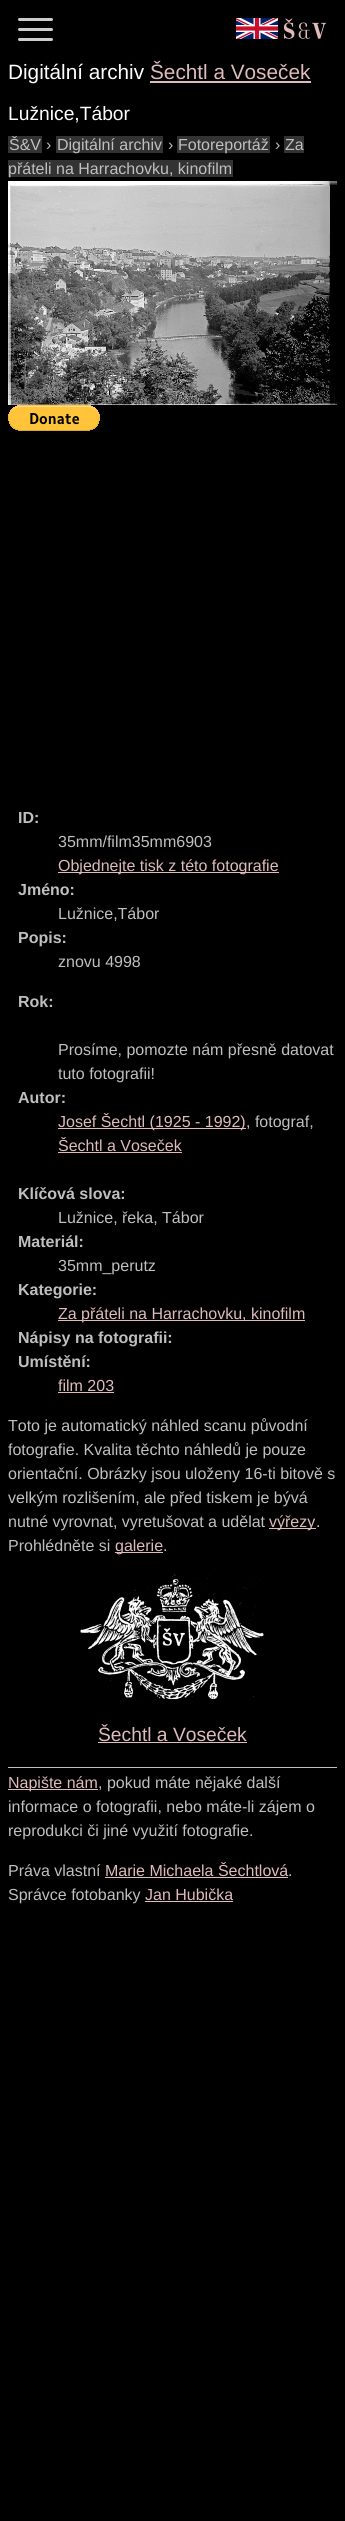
import math
import cairo



def rounded_rect(context, x, y, w, h, r):
    context.new_sub_path()
    for i, (u, v) in enumerate([(x + w - r, y + h - r), (x + r, y + h - r), (x + r, y + r), (x + w - r, y + r)]):
        context.arc(u, v, r, i * math.pi / 2, (i + 1) * math.pi / 2)
    context.close_path()


def draw_image(context, path, x, y, w, h):
    context.save()
    context.set_source_surface(cairo.ImageSurface.create_from_png(path), x, y)
    context.rectangle(x, y, w, h)
    context.fill()
    context.restore()


def draw(context):
    context.set_source_rgb(0, 0, 0)
    context.paint()
    context.set_source_rgb(205 / 255, 205 / 255, 205 / 255)
    rounded_rect(context, 18, 18, 35, 3, 1.5)
    context.fill()
    draw_image(context, "images/1.png", 236, 18, 42, 21)
    draw_image(context, "images/2.png", 283, 18, 44, 21)
    rounded_rect(context, 18, 28, 35, 3, 1.5)
    context.fill()
    rounded_rect(context, 18, 38, 35, 3, 1.5)
    context.fill()
    context.set_source_rgb(223 / 255, 187 / 255, 187 / 255)
    context.rectangle(150, 81, 161, 2)
    context.fill()
    context.set_source_rgb(51 / 255, 51 / 255, 51 / 255)
    context.rectangle(8, 136, 34, 17)
    context.fill()
    context.rectangle(56, 136, 107, 17)
    context.fill()
    context.rectangle(177, 136, 93, 17)
    context.fill()
    context.rectangle(284, 136, 20, 17)
    context.fill()
    context.rectangle(8, 160, 225, 17)
    context.fill()
    draw_image(context, "images/3.png", 8, 181, 329, 224)
    draw_image(context, "images/4.png", 8, 405, 92, 26)
    context.set_source_rgb(223 / 255, 187 / 255, 187 / 255)
    context.rectangle(58, 872, 221, 1)
    context.fill()
    context.rectangle(58, 1128, 188, 1)
    context.fill()
    context.rectangle(58, 1152, 124, 1)
    context.fill()
    context.rectangle(58, 1320, 247, 1)
    context.fill()
    context.rectangle(58, 1392, 56, 1)
    context.fill()
    context.rectangle(269, 1528, 47, 1)
    context.fill()
    context.rectangle(115, 1552, 48, 1)
    context.fill()
    draw_image(context, "images/5.png", 80, 1574, 187, 128)
    context.rectangle(98, 1742, 149, 1)
    context.fill()
    context.set_source_rgb(191 / 255, 191 / 255, 191 / 255)
    context.rectangle(8, 1767, 329, 1)
    context.fill()
    context.set_source_rgb(223 / 255, 187 / 255, 187 / 255)
    context.rectangle(8, 1789, 90, 1)
    context.fill()
    context.rectangle(105, 1877, 183, 1)
    context.fill()
    context.rectangle(145, 1901, 88, 1)
    context.fill()
    context.select_font_face("Liberation Sans")
    context.set_font_size(20.75)
    context.set_source_rgb(1, 1, 1)
    context.move_to(8, 79)
    context.show_text("Digitální archiv")
    context.set_source_rgb(223 / 255, 187 / 255, 187 / 255)
    context.move_to(150, 79)
    context.show_text("Šechtl a Voseček")
    context.set_font_size(19.25)
    context.set_source_rgb(1, 1, 1)
    context.move_to(8, 120)
    context.show_text("Lužnice,Tábor")
    context.set_font_size(16)
    context.set_source_rgb(191 / 255, 191 / 255, 191 / 255)
    context.move_to(9, 150)
    context.show_text("Š&V")
    context.move_to(46, 150)
    context.show_text("›")
    context.move_to(57, 150)
    context.show_text("Digitální archiv")
    context.move_to(168, 150)
    context.show_text("›")
    context.move_to(178, 150)
    context.show_text("Fotoreportáž")
    context.move_to(275, 150)
    context.show_text("›")
    context.move_to(285, 150)
    context.show_text("Za")
    context.move_to(8, 174)
    context.show_text("přáteli na Harrachovku, kinofilm")
    context.select_font_face("Liberation Sans", cairo.FontSlant.NORMAL, cairo.FontWeight.BOLD)
    context.move_to(18, 823)
    context.show_text("ID:")
    context.select_font_face("Liberation Sans")
    context.move_to(58, 847)
    context.show_text("35mm/film35mm6903")
    context.set_source_rgb(223 / 255, 187 / 255, 187 / 255)
    context.move_to(58, 871)
    context.show_text("Objednejte tisk z této fotografie")
    context.select_font_face("Liberation Sans", cairo.FontSlant.NORMAL, cairo.FontWeight.BOLD)
    context.set_source_rgb(191 / 255, 191 / 255, 191 / 255)
    context.move_to(18, 895)
    context.show_text("Jméno:")
    context.select_font_face("Liberation Sans")
    context.move_to(58, 919)
    context.show_text("Lužnice,Tábor")
    context.select_font_face("Liberation Sans", cairo.FontSlant.NORMAL, cairo.FontWeight.BOLD)
    context.move_to(18, 943)
    context.show_text("Popis:")
    context.select_font_face("Liberation Sans")
    context.move_to(58, 967)
    context.show_text("znovu 4998")
    context.select_font_face("Liberation Sans", cairo.FontSlant.NORMAL, cairo.FontWeight.BOLD)
    context.move_to(18, 1007)
    context.show_text("Rok:")
    context.select_font_face("Liberation Sans")
    context.move_to(58, 1055)
    context.show_text("Prosíme, pomozte nám přesně datovat")
    context.move_to(58, 1079)
    context.show_text("tuto fotografii!")
    context.select_font_face("Liberation Sans", cairo.FontSlant.NORMAL, cairo.FontWeight.BOLD)
    context.move_to(18, 1103)
    context.show_text("Autor:")
    context.select_font_face("Liberation Sans")
    context.set_source_rgb(223 / 255, 187 / 255, 187 / 255)
    context.move_to(58, 1127)
    context.show_text("Josef Šechtl (1925 - 1992)")
    context.set_source_rgb(191 / 255, 191 / 255, 191 / 255)
    context.move_to(246, 1127)
    context.show_text(", fotograf,")
    context.set_source_rgb(223 / 255, 187 / 255, 187 / 255)
    context.move_to(58, 1151)
    context.show_text("Šechtl a Voseček")
    context.select_font_face("Liberation Sans", cairo.FontSlant.NORMAL, cairo.FontWeight.BOLD)
    context.set_source_rgb(191 / 255, 191 / 255, 191 / 255)
    context.move_to(18, 1199)
    context.show_text("Klíčová slova:")
    context.select_font_face("Liberation Sans")
    context.move_to(58, 1223)
    context.show_text("Lužnice, řeka, Tábor")
    context.select_font_face("Liberation Sans", cairo.FontSlant.NORMAL, cairo.FontWeight.BOLD)
    context.move_to(18, 1247)
    context.show_text("Materiál:")
    context.select_font_face("Liberation Sans")
    context.move_to(58, 1271)
    context.show_text("35mm_perutz")
    context.select_font_face("Liberation Sans", cairo.FontSlant.NORMAL, cairo.FontWeight.BOLD)
    context.move_to(18, 1295)
    context.show_text("Kategorie:")
    context.select_font_face("Liberation Sans")
    context.set_source_rgb(223 / 255, 187 / 255, 187 / 255)
    context.move_to(58, 1319)
    context.show_text("Za přáteli na Harrachovku, kinofilm")
    context.select_font_face("Liberation Sans", cairo.FontSlant.NORMAL, cairo.FontWeight.BOLD)
    context.set_source_rgb(191 / 255, 191 / 255, 191 / 255)
    context.move_to(18, 1343)
    context.show_text("Nápisy na fotografii:")
    context.move_to(18, 1367)
    context.show_text("Umístění:")
    context.select_font_face("Liberation Sans")
    context.set_source_rgb(223 / 255, 187 / 255, 187 / 255)
    context.move_to(58, 1391)
    context.show_text("film 203")
    context.set_source_rgb(191 / 255, 191 / 255, 191 / 255)
    context.move_to(8, 1431)
    context.show_text("Toto je automatický náhled scanu původní")
    context.move_to(8, 1455)
    context.show_text("fotografie. Kvalita těchto náhledů je pouze")
    context.move_to(8, 1479)
    context.show_text("orientační. Obrázky jsou uloženy 16-ti bitově s")
    context.move_to(8, 1503)
    context.show_text("velkým rozlišením, ale před tiskem je bývá")
    context.move_to(8, 1527)
    context.show_text("nutné vyrovnat, vyretušovat a udělat")
    context.set_source_rgb(223 / 255, 187 / 255, 187 / 255)
    context.move_to(269, 1527)
    context.show_text("výřezy")
    context.set_source_rgb(191 / 255, 191 / 255, 191 / 255)
    context.move_to(316, 1527)
    context.show_text(".")
    context.move_to(8, 1551)
    context.show_text("Prohlédněte si")
    context.set_source_rgb(223 / 255, 187 / 255, 187 / 255)
    context.move_to(115, 1551)
    context.show_text("galerie")
    context.set_source_rgb(191 / 255, 191 / 255, 191 / 255)
    context.move_to(163, 1551)
    context.show_text(".")
    context.set_font_size(19.25)
    context.set_source_rgb(223 / 255, 187 / 255, 187 / 255)
    context.move_to(98, 1741)
    context.show_text("Šechtl a Voseček")
    context.set_font_size(16)
    context.move_to(8, 1788)
    context.show_text("Napište nám")
    context.set_source_rgb(191 / 255, 191 / 255, 191 / 255)
    context.move_to(98, 1788)
    context.show_text(", pokud máte nějaké další")
    context.move_to(8, 1812)
    context.show_text("informace o fotografii, nebo máte-li zájem o")
    context.move_to(8, 1836)
    context.show_text("reprodukci či jiné využití fotografie.")
    context.move_to(8, 1876)
    context.show_text("Práva vlastní")
    context.set_source_rgb(223 / 255, 187 / 255, 187 / 255)
    context.move_to(105, 1876)
    context.show_text("Marie Michaela Šechtlová")
    context.set_source_rgb(191 / 255, 191 / 255, 191 / 255)
    context.move_to(288, 1876)
    context.show_text(".")
    context.move_to(8, 1900)
    context.show_text("Správce fotobanky")
    context.set_source_rgb(223 / 255, 187 / 255, 187 / 255)
    context.move_to(145, 1900)
    context.show_text("Jan Hubička")


surface = cairo.ImageSurface(cairo.Format.RGB24, 345, 2521)
context = cairo.Context(surface)
options = cairo.FontOptions()
options.set_hint_metrics(cairo.HintMetrics.OFF)
options.set_hint_style(cairo.HintStyle.NONE)
context.set_font_options(options)
context.set_miter_limit(4)
draw(context)
surface.write_to_png("out.png")
